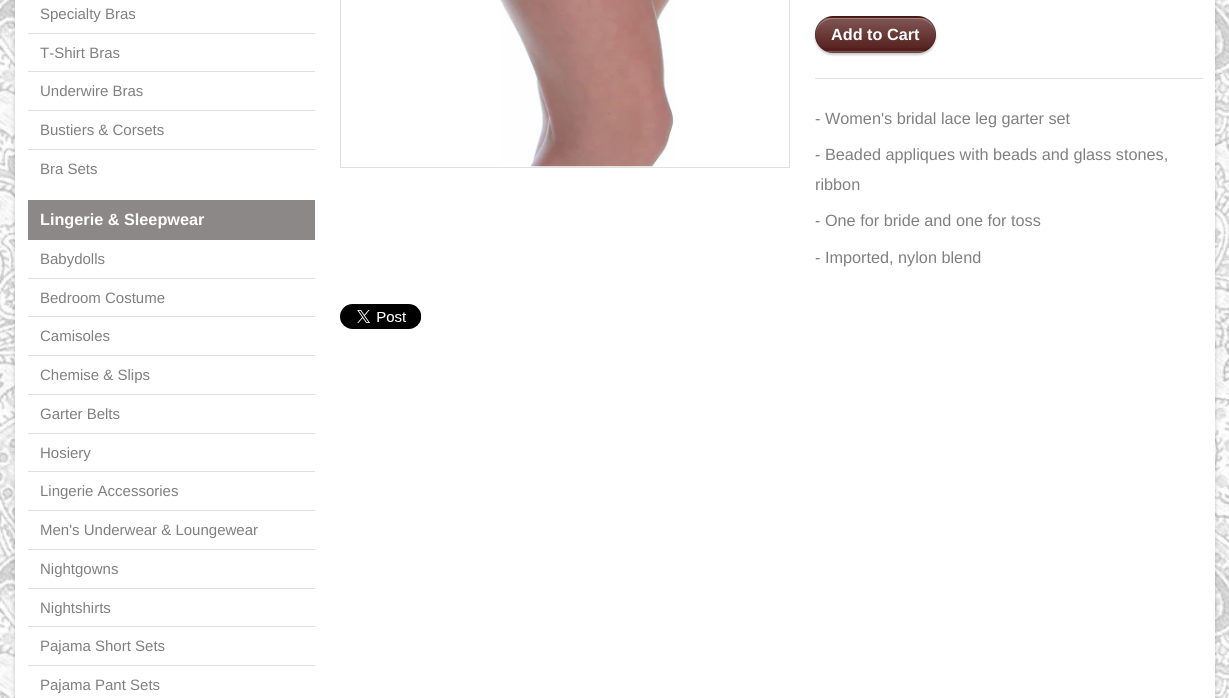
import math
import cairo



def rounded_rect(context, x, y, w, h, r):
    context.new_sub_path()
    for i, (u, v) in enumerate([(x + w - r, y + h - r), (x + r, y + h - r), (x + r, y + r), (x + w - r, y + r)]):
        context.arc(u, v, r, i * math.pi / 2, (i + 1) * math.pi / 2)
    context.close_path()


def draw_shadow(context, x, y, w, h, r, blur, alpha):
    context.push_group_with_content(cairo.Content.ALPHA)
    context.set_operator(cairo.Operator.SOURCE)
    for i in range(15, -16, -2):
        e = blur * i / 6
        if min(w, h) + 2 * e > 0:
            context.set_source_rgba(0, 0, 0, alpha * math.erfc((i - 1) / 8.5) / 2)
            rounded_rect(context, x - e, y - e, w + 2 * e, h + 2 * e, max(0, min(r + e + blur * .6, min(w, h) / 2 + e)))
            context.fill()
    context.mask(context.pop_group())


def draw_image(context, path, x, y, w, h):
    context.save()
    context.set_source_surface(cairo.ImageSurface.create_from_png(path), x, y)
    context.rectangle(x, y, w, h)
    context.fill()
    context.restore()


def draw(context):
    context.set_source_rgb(1, 1, 1)
    context.paint()
    draw_image(context, "images/1.png", 0, 0, 1229, 698)
    context.set_source_rgb(0, 0, 0)
    draw_shadow(context, 15, -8, 1200, 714, 0, 2.5, 0.2)
    context.set_source_rgb(1, 1, 1)
    context.rectangle(15, 0, 1200, 698)
    context.fill()
    context.set_source_rgb(224 / 255, 224 / 255, 224 / 255)
    context.rectangle(28, 33, 287, 1)
    context.fill()
    context.rectangle(28, 71, 287, 1)
    context.fill()
    context.rectangle(28, 110, 287, 1)
    context.fill()
    context.rectangle(28, 149, 287, 1)
    context.fill()
    context.set_source_rgb(140 / 255, 136 / 255, 136 / 255)
    context.rectangle(28, 200, 287, 40)
    context.fill()
    context.set_source_rgb(224 / 255, 224 / 255, 224 / 255)
    context.rectangle(28, 278, 287, 1)
    context.fill()
    context.rectangle(28, 316, 287, 1)
    context.fill()
    context.rectangle(28, 355, 287, 1)
    context.fill()
    context.rectangle(28, 394, 287, 1)
    context.fill()
    context.rectangle(28, 433, 287, 1)
    context.fill()
    context.rectangle(28, 471, 287, 1)
    context.fill()
    context.rectangle(28, 510, 287, 1)
    context.fill()
    context.rectangle(28, 549, 287, 1)
    context.fill()
    context.rectangle(28, 588, 287, 1)
    context.fill()
    context.rectangle(28, 626, 287, 1)
    context.fill()
    context.rectangle(28, 665, 287, 1)
    context.fill()
    context.rectangle(340.5, -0.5, 449, 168)
    context.set_line_width(1)
    context.stroke()
    draw_image(context, "images/2.png", 499, 0, 177, 167)
    context.rectangle(815, 78, 388, 1)
    context.fill()
    context.set_source_rgb(0, 0, 0)
    draw_shadow(context, 815, 19, 121, 36, 18, 1, 0.2)
    context.set_source_rgb(84 / 255, 30 / 255, 28 / 255)
    rounded_rect(context, 815, 16, 121, 37, 18.5)
    context.fill()
    context.save()
    rounded_rect(context, 815, 16, 121, 37, 18.5)
    context.clip()
    gradient = cairo.LinearGradient(816, 51, 816, 18)
    gradient.add_color_stop_rgba(0, 1, 1, 1, 0)
    gradient.add_color_stop_rgba(1, 1, 1, 1, 0.25)
    context.set_source(gradient)
    context.rectangle(815, 18, 121, 30)
    context.fill()
    gradient = cairo.LinearGradient(816, 85, 816, 51)
    gradient.add_color_stop_rgba(0, 1, 1, 1, 0)
    gradient.add_color_stop_rgba(1, 1, 1, 1, 0.25)
    context.set_source(gradient)
    context.rectangle(825, 51, 101, 2)
    context.fill()
    context.restore()
    context.set_source_rgba(1, 1, 1, 0.25)
    context.new_path()
    context.move_to(833, 19)
    context.line_to(918, 19)
    context.curve_to(927, 19, 935, 26, 935, 35)
    context.line_to(935, 34)
    context.curve_to(935, 25, 928, 18, 918, 18)
    context.line_to(832, 18)
    context.curve_to(823, 18, 816, 25, 816, 34)
    context.line_to(816, 35)
    context.curve_to(816, 26, 824, 19, 833, 19)
    context.close_path()
    context.fill()
    rounded_rect(context, 815.5, 16.5, 120, 36, 18)
    context.set_source_rgba(0, 0, 0, 0.2)
    context.stroke()
    draw_image(context, "images/3.png", 340, 304, 82, 25)
    context.select_font_face("Liberation Sans")
    context.set_font_size(15)
    context.set_source_rgb(128 / 255, 128 / 255, 128 / 255)
    context.move_to(40, 19)
    context.show_text("Specialty Bras")
    context.move_to(40, 58)
    context.show_text("T-Shirt Bras")
    context.move_to(40, 96)
    context.show_text("Underwire Bras")
    context.move_to(40, 135)
    context.show_text("Bustiers & Corsets")
    context.move_to(40, 174)
    context.show_text("Bra Sets")
    context.select_font_face("Liberation Sans", cairo.FontSlant.NORMAL, cairo.FontWeight.BOLD)
    context.set_font_size(16.25)
    context.set_source_rgb(1, 1, 1)
    context.move_to(40, 225)
    context.show_text("Lingerie & Sleepwear")
    context.select_font_face("Liberation Sans")
    context.set_font_size(15)
    context.set_source_rgb(128 / 255, 128 / 255, 128 / 255)
    context.move_to(40, 264)
    context.show_text("Babydolls")
    context.move_to(40, 303)
    context.show_text("Bedroom Costume")
    context.move_to(40, 341)
    context.show_text("Camisoles")
    context.move_to(40, 380)
    context.show_text("Chemise & Slips")
    context.move_to(40, 419)
    context.show_text("Garter Belts")
    context.move_to(40, 458)
    context.show_text("Hosiery")
    context.move_to(40, 496)
    context.show_text("Lingerie Accessories")
    context.move_to(40, 535)
    context.show_text("Men's Underwear & Loungewear")
    context.move_to(40, 574)
    context.show_text("Nightgowns")
    context.move_to(40, 613)
    context.show_text("Nightshirts")
    context.move_to(40, 651)
    context.show_text("Pajama Short Sets")
    context.move_to(40, 690)
    context.show_text("Pajama Pant Sets")
    context.select_font_face("Liberation Sans", cairo.FontSlant.NORMAL, cairo.FontWeight.BOLD)
    context.set_font_size(16.25)
    context.set_source_rgb(1, 1, 1)
    context.move_to(831, 40)
    context.show_text("Add to Cart")
    context.select_font_face("Liberation Sans")
    context.set_source_rgb(128 / 255, 128 / 255, 128 / 255)
    context.move_to(815, 124)
    context.show_text("- Women's bridal lace leg garter set")
    context.move_to(815, 160)
    context.show_text("- Beaded appliques with beads and glass stones,")
    context.move_to(815, 190)
    context.show_text("ribbon")
    context.move_to(815, 226)
    context.show_text("- One for bride and one for toss")
    context.move_to(815, 263)
    context.show_text("- Imported, nylon blend")


surface = cairo.ImageSurface(cairo.Format.RGB24, 1229, 698)
context = cairo.Context(surface)
options = cairo.FontOptions()
options.set_hint_metrics(cairo.HintMetrics.OFF)
options.set_hint_style(cairo.HintStyle.NONE)
context.set_font_options(options)
context.set_miter_limit(4)
draw(context)
surface.write_to_png("out.png")
